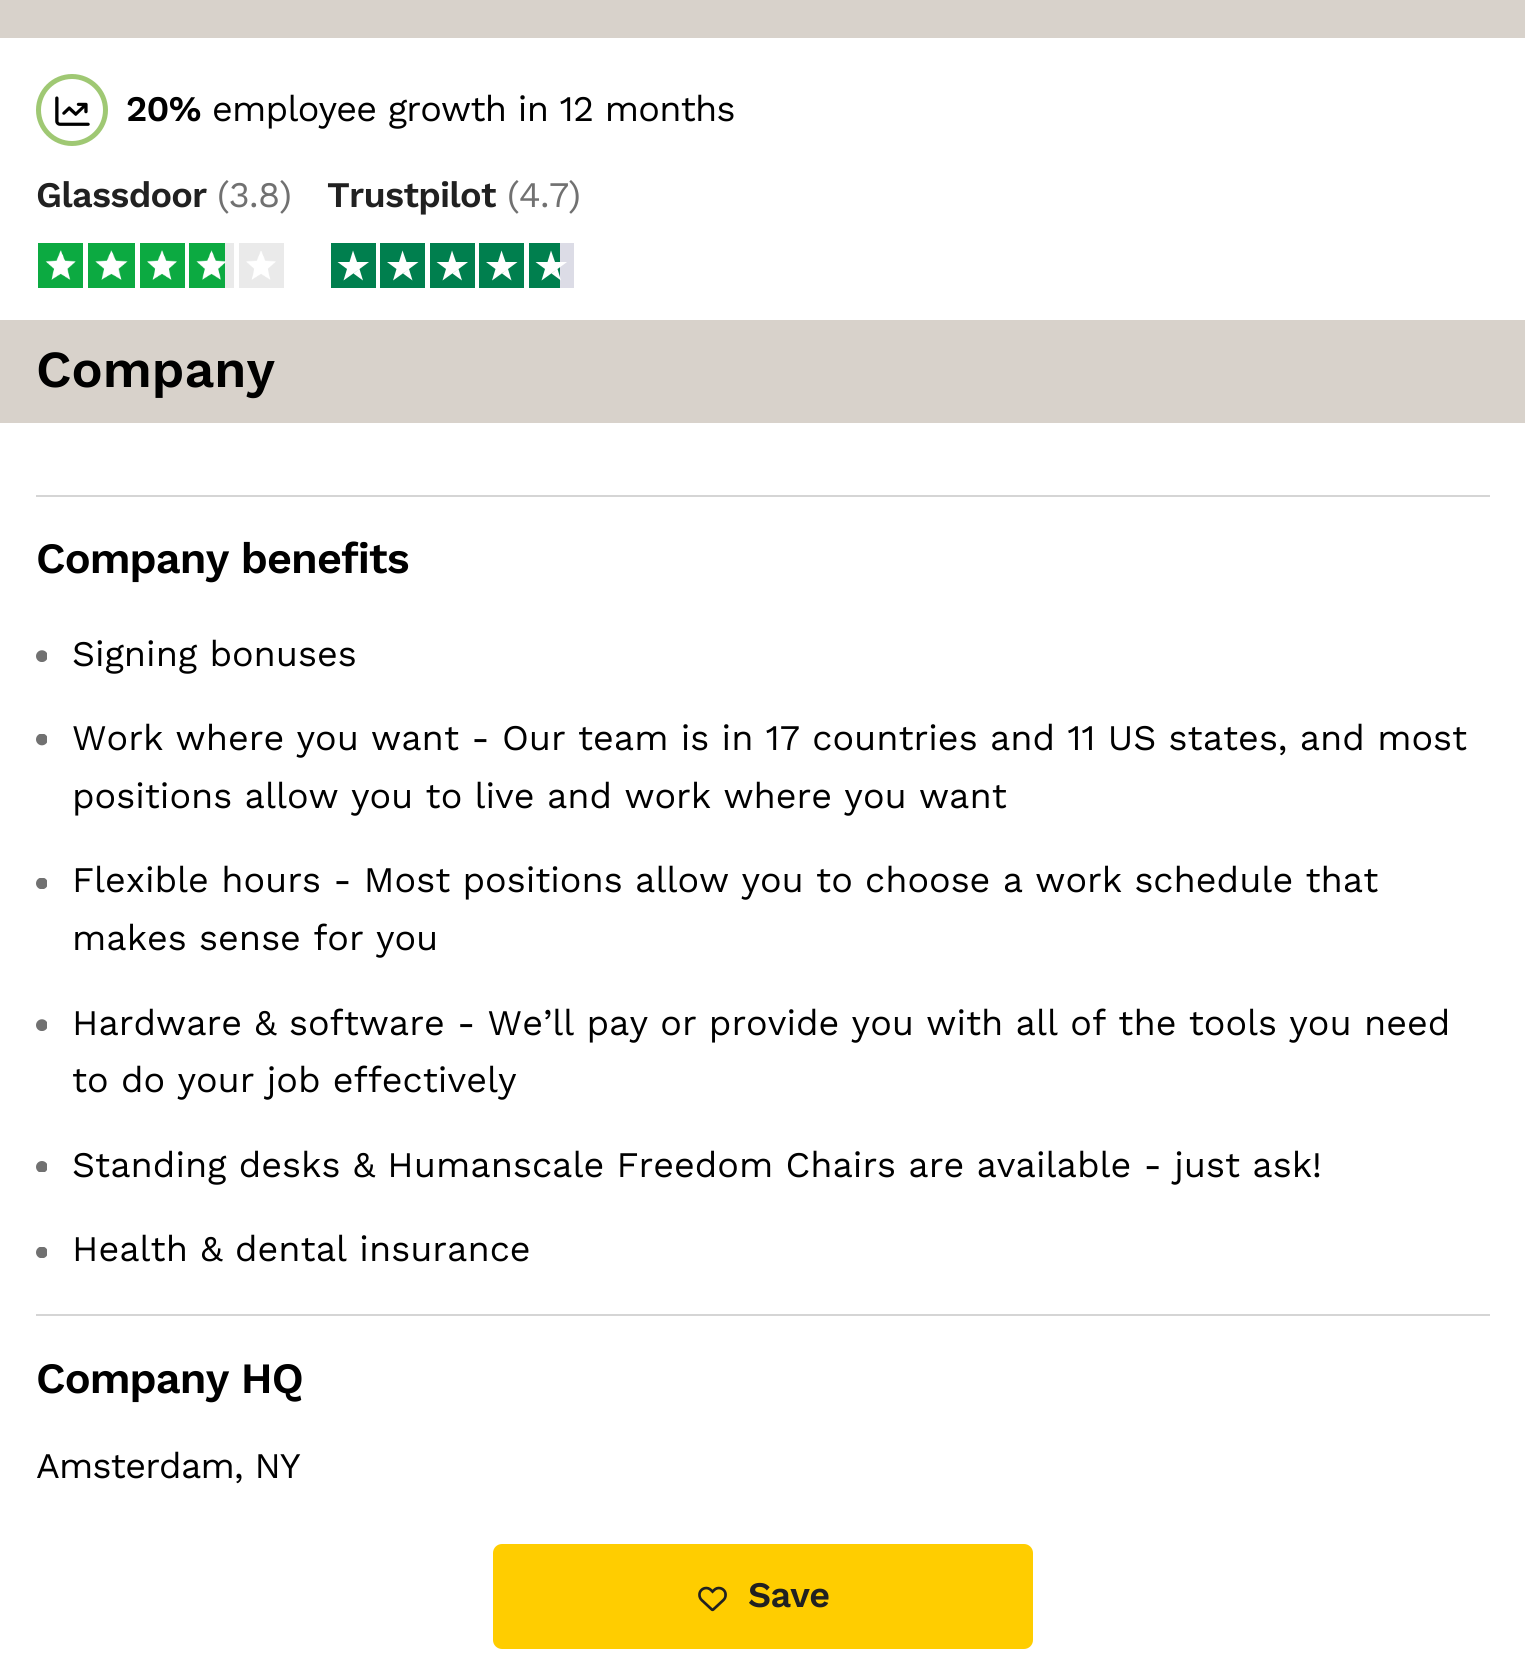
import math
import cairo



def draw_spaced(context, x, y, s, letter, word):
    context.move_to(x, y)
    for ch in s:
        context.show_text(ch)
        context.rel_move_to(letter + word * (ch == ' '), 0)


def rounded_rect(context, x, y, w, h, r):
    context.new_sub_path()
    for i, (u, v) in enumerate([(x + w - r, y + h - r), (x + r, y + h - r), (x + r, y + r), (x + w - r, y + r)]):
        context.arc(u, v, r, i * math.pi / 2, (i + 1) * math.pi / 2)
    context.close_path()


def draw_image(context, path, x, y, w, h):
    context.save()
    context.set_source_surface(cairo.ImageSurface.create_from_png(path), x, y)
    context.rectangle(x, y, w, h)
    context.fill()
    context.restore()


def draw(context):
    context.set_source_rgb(1, 1, 1)
    context.paint()
    context.set_source_rgb(216 / 255, 210 / 255, 203 / 255)
    context.rectangle(0, 0, 1525, 38)
    context.fill()
    context.arc(72, 110, 33.5, 0, 2 * math.pi)
    context.set_source_rgb(159 / 255, 200 / 255, 115 / 255)
    context.set_line_width(5)
    context.stroke()
    draw_image(context, "images/1.png", 55, 96, 35, 30)
    context.set_source_rgb(12 / 255, 170 / 255, 65 / 255)
    context.rectangle(38, 243, 45, 45)
    context.fill()
    draw_image(context, "images/2.png", 45, 250, 31, 30)
    context.rectangle(88, 243, 47, 45)
    context.fill()
    draw_image(context, "images/3.png", 95, 250, 33, 30)
    context.rectangle(140, 243, 45, 45)
    context.fill()
    draw_image(context, "images/4.png", 147, 250, 30, 30)
    context.rectangle(189, 243, 36, 45)
    context.fill()
    context.set_source_rgb(234 / 255, 234 / 255, 234 / 255)
    context.rectangle(225, 243, 9, 45)
    context.fill()
    draw_image(context, "images/5.png", 196, 250, 30, 30)
    context.rectangle(239, 243, 45, 45)
    context.fill()
    draw_image(context, "images/6.png", 246, 251, 30, 29)
    context.set_source_rgb(0, 127 / 255, 78 / 255)
    context.rectangle(331, 243, 45, 45)
    context.fill()
    context.set_source_rgb(1, 1, 1)
    context.new_path()
    context.move_to(353.5, 273.5)
    context.line_to(359.5, 269)
    context.line_to(363, 280.5)
    context.close_path()
    context.move_to(369, 262)
    context.line_to(357, 262)
    context.line_to(353, 250.5)
    context.line_to(349.5, 262)
    context.line_to(337.5, 262)
    context.line_to(347, 269)
    context.line_to(343.5, 280.5)
    context.line_to(359.5, 269)
    context.close_path()
    context.fill()
    context.set_source_rgb(0, 127 / 255, 78 / 255)
    context.rectangle(380, 243, 45, 45)
    context.fill()
    context.set_source_rgb(1, 1, 1)
    context.new_path()
    context.move_to(403, 273.5)
    context.line_to(409, 269)
    context.line_to(412.5, 280.5)
    context.close_path()
    context.move_to(418.5, 262)
    context.line_to(406.5, 262)
    context.line_to(402.5, 250.5)
    context.line_to(399, 262)
    context.line_to(387, 262)
    context.line_to(396.5, 269)
    context.line_to(393, 280.5)
    context.line_to(409, 269)
    context.close_path()
    context.fill()
    context.set_source_rgb(0, 127 / 255, 78 / 255)
    context.rectangle(430, 243, 45, 45)
    context.fill()
    context.set_source_rgb(1, 1, 1)
    context.new_path()
    context.move_to(452.5, 273.5)
    context.line_to(458.5, 269)
    context.line_to(462, 280.5)
    context.close_path()
    context.move_to(468, 262)
    context.line_to(456, 262)
    context.line_to(452, 250.5)
    context.line_to(448.5, 262)
    context.line_to(436.5, 262)
    context.line_to(446, 269)
    context.line_to(442.5, 280.5)
    context.line_to(458.5, 269)
    context.close_path()
    context.fill()
    context.set_source_rgb(0, 127 / 255, 78 / 255)
    context.rectangle(479, 243, 45, 45)
    context.fill()
    context.set_source_rgb(1, 1, 1)
    context.new_path()
    context.move_to(502, 273.5)
    context.line_to(508, 269)
    context.line_to(511.5, 280.5)
    context.close_path()
    context.move_to(517.5, 262)
    context.line_to(505.5, 262)
    context.line_to(501.5, 250.5)
    context.line_to(498, 262)
    context.line_to(486, 262)
    context.line_to(495.5, 269)
    context.line_to(492, 280.5)
    context.line_to(508, 269)
    context.close_path()
    context.fill()
    context.set_source_rgb(0, 127 / 255, 78 / 255)
    context.rectangle(529, 243, 31, 45)
    context.fill()
    context.set_source_rgb(220 / 255, 220 / 255, 230 / 255)
    context.rectangle(560, 243, 14, 45)
    context.fill()
    context.set_source_rgb(1, 1, 1)
    context.new_path()
    context.move_to(551.5, 273.5)
    context.line_to(557.5, 269)
    context.line_to(561, 280.5)
    context.close_path()
    context.move_to(567, 262)
    context.line_to(555, 262)
    context.line_to(551, 250.5)
    context.line_to(547.5, 262)
    context.line_to(535.5, 262)
    context.line_to(545, 269)
    context.line_to(541.5, 280.5)
    context.line_to(557.5, 269)
    context.close_path()
    context.fill()
    context.set_source_rgb(216 / 255, 210 / 255, 203 / 255)
    context.rectangle(0, 320, 1525, 103)
    context.fill()
    context.set_source_rgb(213 / 255, 213 / 255, 213 / 255)
    context.rectangle(36, 495, 1454, 2)
    context.fill()
    draw_image(context, "images/7.png", 36, 650, 11, 12)
    draw_image(context, "images/8.png", 36, 734, 11, 12)
    draw_image(context, "images/9.png", 36, 878, 11, 11)
    draw_image(context, "images/7.png", 36, 1019, 11, 12)
    draw_image(context, "images/10.png", 36, 1161, 11, 11)
    draw_image(context, "images/9.png", 36, 1247, 11, 11)
    context.rectangle(36, 1314, 1454, 2)
    context.fill()
    context.set_source_rgb(1, 205 / 255, 0)
    rounded_rect(context, 494, 1545, 538, 103, 8)
    context.fill_preserve()
    context.set_line_width(2)
    context.stroke()
    draw_image(context, "images/11.png", 698, 1586, 29, 26)
    context.select_font_face("Work Sans SemiBold")
    context.set_font_size(36)
    context.set_source_rgb(0, 0, 0)
    draw_spaced(context, 126, 121, "20%", -0.75, 0)
    context.select_font_face("Work Sans")
    draw_spaced(context, 212, 121, "employee growth in 12 months", -0.75, 0)
    context.select_font_face("Work Sans SemiBold")
    context.set_source_rgb(33 / 255, 33 / 255, 33 / 255)
    draw_spaced(context, 36, 207, "Glassdoor", -0.75, 0)
    context.select_font_face("Work Sans")
    context.set_source_rgb(113 / 255, 113 / 255, 113 / 255)
    draw_spaced(context, 217, 207, "(3.8)", -0.75, 0)
    context.select_font_face("Work Sans SemiBold")
    context.set_source_rgb(33 / 255, 33 / 255, 33 / 255)
    draw_spaced(context, 327, 207, "Trustpilot", -0.75, 0)
    context.select_font_face("Work Sans")
    context.set_source_rgb(113 / 255, 113 / 255, 113 / 255)
    draw_spaced(context, 507, 207, "(4.7)", -0.75, 0)
    context.select_font_face("Work Sans SemiBold")
    context.set_font_size(52)
    context.set_source_rgb(0, 0, 0)
    context.move_to(36, 387)
    context.show_text("Company")
    context.set_font_size(43.25)
    draw_spaced(context, 36, 573, "Company benefits", -0.9, 0)
    context.select_font_face("Work Sans")
    context.set_font_size(36)
    context.move_to(72, 666)
    context.show_text("Signing bonuses")
    context.move_to(72, 750)
    context.show_text("Work where you want - Our team is in 17 countries and 11 US states, and most")
    context.move_to(72, 808)
    context.show_text("positions allow you to live and work where you want")
    context.move_to(72, 892)
    context.show_text("Flexible hours - Most positions allow you to choose a work schedule that")
    context.move_to(72, 950)
    context.show_text("makes sense for you")
    context.move_to(72, 1035)
    context.show_text("Hardware & software - We’ll pay or provide you with all of the tools you need")
    context.move_to(72, 1092)
    context.show_text("to do your job effectively")
    context.move_to(72, 1177)
    context.show_text("Standing desks & Humanscale Freedom Chairs are available - just ask!")
    context.move_to(72, 1261)
    context.show_text("Health & dental insurance")
    context.select_font_face("Work Sans SemiBold")
    context.set_font_size(43.25)
    draw_spaced(context, 36, 1393, "Company HQ", -0.9, 0)
    context.select_font_face("Work Sans")
    context.set_font_size(36)
    draw_spaced(context, 36, 1478, "Amsterdam, NY", -0.75, 0)
    context.select_font_face("Work Sans SemiBold")
    context.set_source_rgb(33 / 255, 33 / 255, 33 / 255)
    draw_spaced(context, 748, 1607, "Save", -0.75, 0)


surface = cairo.ImageSurface(cairo.Format.RGB24, 1525, 1676)
context = cairo.Context(surface)
options = cairo.FontOptions()
options.set_hint_metrics(cairo.HintMetrics.OFF)
options.set_hint_style(cairo.HintStyle.NONE)
context.set_font_options(options)
context.set_miter_limit(4)
draw(context)
surface.write_to_png("out.png")
